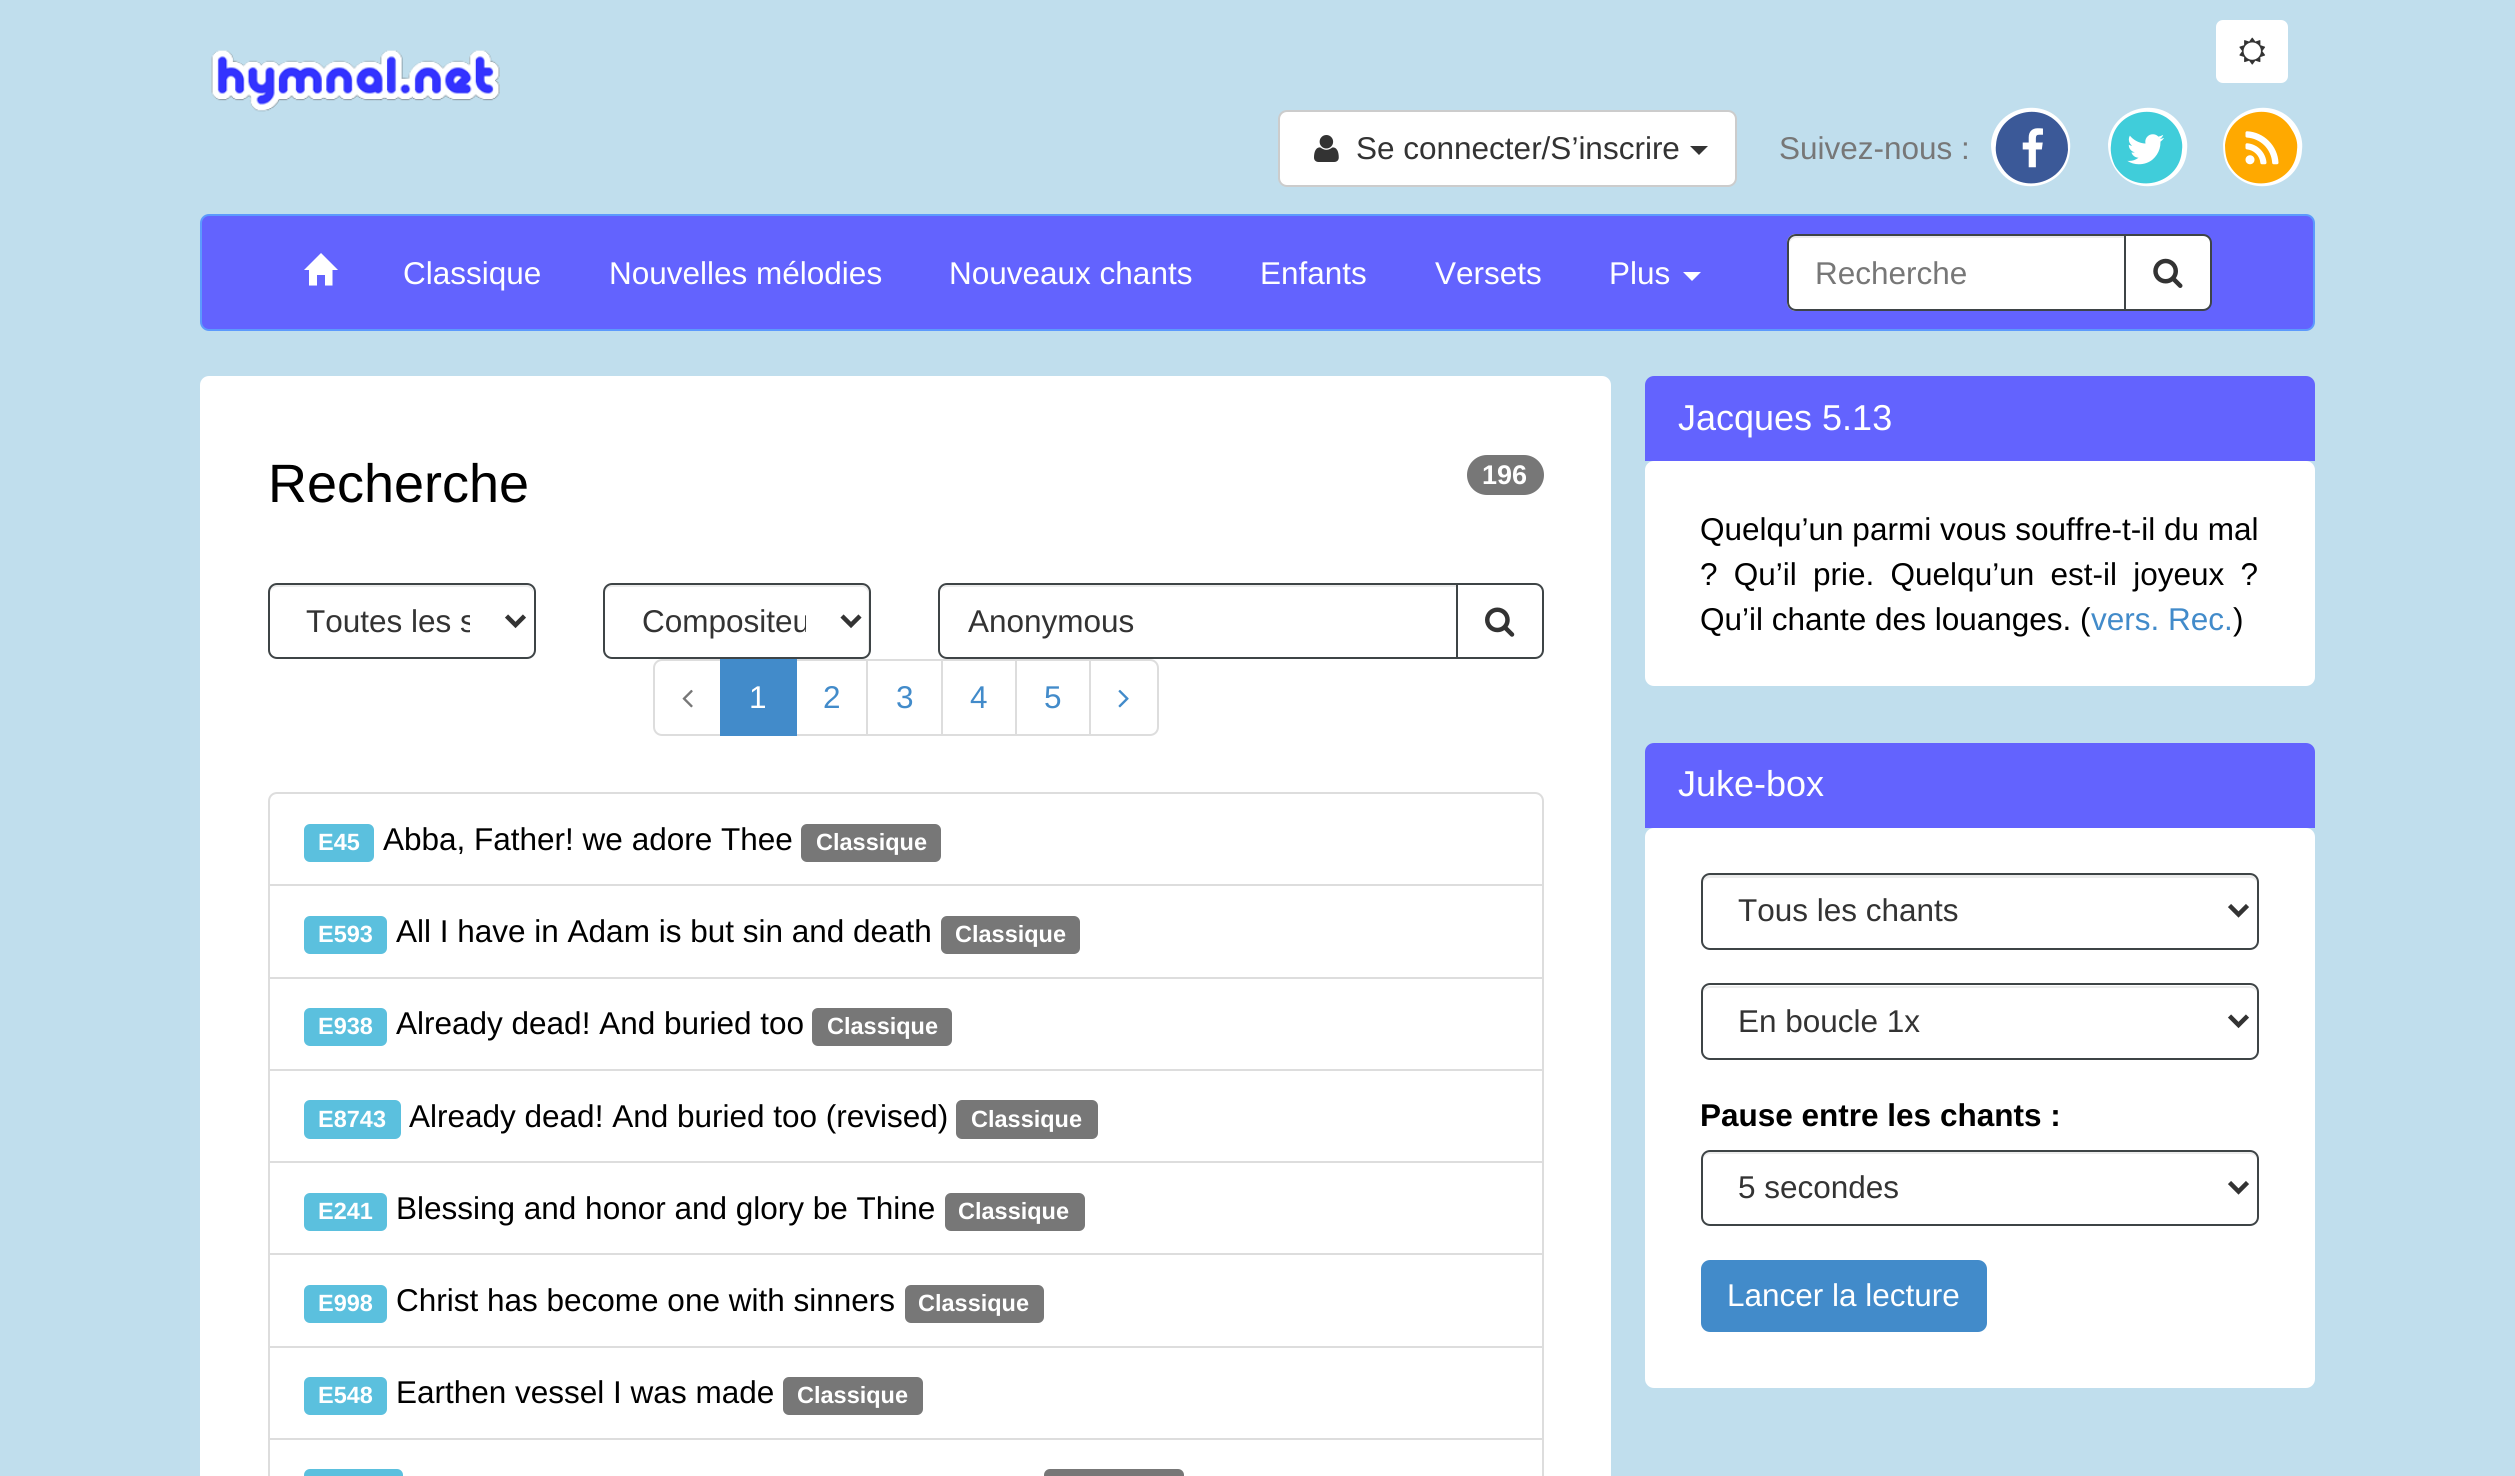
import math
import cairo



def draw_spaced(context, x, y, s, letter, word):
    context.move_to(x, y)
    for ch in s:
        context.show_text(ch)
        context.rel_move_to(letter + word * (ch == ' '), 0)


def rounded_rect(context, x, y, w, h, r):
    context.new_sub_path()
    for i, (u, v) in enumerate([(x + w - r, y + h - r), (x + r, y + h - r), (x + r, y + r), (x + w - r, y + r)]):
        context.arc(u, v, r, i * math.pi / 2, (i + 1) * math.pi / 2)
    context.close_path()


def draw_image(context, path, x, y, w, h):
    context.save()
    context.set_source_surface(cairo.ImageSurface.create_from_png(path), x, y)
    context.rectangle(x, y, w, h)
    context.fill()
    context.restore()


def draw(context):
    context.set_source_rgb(192 / 255, 222 / 255, 237 / 255)
    context.paint()
    draw_image(context, "images/1.png", 211, 50, 289, 62)
    context.set_source_rgb(1, 1, 1)
    rounded_rect(context, 2216, 20, 72, 63, 7)
    context.fill()
    draw_image(context, "images/2.png", 2239, 37, 27, 28)
    rounded_rect(context, 1279, 111, 457, 75, 8)
    context.fill_preserve()
    context.set_source_rgb(204 / 255, 204 / 255, 204 / 255)
    context.stroke()
    draw_image(context, "images/3.png", 1314, 135, 25, 27)
    context.set_source_rgb(51 / 255, 51 / 255, 51 / 255)
    context.new_path()
    context.move_to(1690, 146)
    context.line_to(1708, 146)
    context.line_to(1699, 155)
    context.close_path()
    context.fill()
    context.set_source_rgb(1, 1, 1)
    context.new_path()
    context.move_to(1997, 167)
    context.curve_to(1993, 160, 1991, 152, 1991, 144)
    context.curve_to(1994, 106, 2046, 94, 2065, 127)
    context.curve_to(2069, 134, 2071, 142, 2070, 150)
    context.curve_to(2068, 188, 2016, 200, 1997, 167)
    context.close_path()
    context.fill()
    context.set_source_rgb(59 / 255, 89 / 255, 152 / 255)
    context.new_path()
    context.move_to(2001, 166)
    context.curve_to(1997, 160, 1995, 152, 1996, 145)
    context.curve_to(1998, 110, 2045, 99, 2063, 130)
    context.curve_to(2067, 136, 2068, 143, 2068, 150)
    context.curve_to(2065, 185, 2018, 196, 2001, 166)
    context.close_path()
    context.fill()
    draw_image(context, "images/4.png", 2022, 128, 21, 40)
    context.set_source_rgb(1, 1, 1)
    context.new_path()
    context.move_to(2114, 167)
    context.curve_to(2110, 160, 2108, 152, 2108, 144)
    context.curve_to(2111, 106, 2163, 94, 2182, 127)
    context.curve_to(2186, 134, 2188, 142, 2187, 150)
    context.curve_to(2185, 188, 2133, 200, 2114, 167)
    context.close_path()
    context.fill()
    context.set_source_rgb(64 / 255, 205 / 255, 218 / 255)
    context.new_path()
    context.move_to(2115, 166)
    context.curve_to(2112, 160, 2110, 152, 2111, 145)
    context.curve_to(2113, 110, 2160, 99, 2178, 130)
    context.curve_to(2181, 136, 2183, 143, 2182, 150)
    context.curve_to(2180, 185, 2133, 196, 2115, 166)
    context.close_path()
    context.fill()
    draw_image(context, "images/5.png", 2127, 134, 37, 31)
    context.set_source_rgb(1, 1, 1)
    context.new_path()
    context.move_to(2228, 167)
    context.curve_to(2224, 160, 2223, 152, 2223, 144)
    context.curve_to(2226, 106, 2277, 94, 2297, 127)
    context.curve_to(2301, 134, 2303, 142, 2302, 150)
    context.curve_to(2300, 188, 2248, 200, 2228, 167)
    context.close_path()
    context.fill()
    context.set_source_rgb(1, 169 / 255, 0)
    context.new_path()
    context.move_to(2230, 166)
    context.curve_to(2226, 160, 2225, 152, 2225, 145)
    context.curve_to(2228, 110, 2275, 99, 2292, 130)
    context.curve_to(2296, 136, 2298, 143, 2297, 150)
    context.curve_to(2295, 185, 2248, 196, 2230, 166)
    context.close_path()
    context.fill()
    draw_image(context, "images/6.png", 2245, 131, 34, 34)
    context.set_source_rgb(99 / 255, 99 / 255, 254 / 255)
    rounded_rect(context, 201, 215, 2113, 115, 8)
    context.fill_preserve()
    context.set_source_rgb(92 / 255, 154 / 255, 253 / 255)
    context.stroke()
    context.set_source_rgb(1, 1, 1)
    context.new_path()
    context.move_to(304, 270)
    context.line_to(321, 253)
    context.line_to(338, 270)
    context.line_to(332.5, 270)
    context.line_to(332.5, 285.5)
    context.line_to(325, 285.5)
    context.line_to(325, 275)
    context.line_to(317, 275)
    context.line_to(317, 285.5)
    context.line_to(309, 285.5)
    context.line_to(309, 270)
    context.close_path()
    context.fill()
    context.new_path()
    context.move_to(1683, 272)
    context.line_to(1701, 272)
    context.line_to(1692, 281)
    context.close_path()
    context.fill()
    context.new_path()
    context.move_to(2125, 235)
    context.line_to(2203, 235)
    context.curve_to(2207.5, 235, 2211, 238.5, 2211, 243)
    context.line_to(2211, 302)
    context.curve_to(2211, 306.5, 2207.5, 310, 2203, 310)
    context.line_to(2125, 310)
    context.close_path()
    context.fill_preserve()
    context.set_source_rgb(62 / 255, 68 / 255, 70 / 255)
    context.stroke()
    context.set_source_rgb(1, 1, 1)
    context.new_path()
    context.move_to(1796, 234)
    context.line_to(2126, 234)
    context.line_to(2126, 311)
    context.line_to(1796, 311)
    context.curve_to(1791, 311, 1787, 307, 1787, 302)
    context.line_to(1787, 243)
    context.curve_to(1787, 238, 1791, 234, 1796, 234)
    context.close_path()
    context.fill()
    context.set_source_rgb(236 / 255, 236 / 255, 236 / 255)
    context.new_path()
    context.move_to(1796, 238)
    context.line_to(2124, 238)
    context.line_to(2124, 236)
    context.line_to(1795, 236)
    context.curve_to(1790, 237, 1789, 241, 1789, 245)
    context.curve_to(1789, 242, 1792, 238, 1796, 238)
    context.close_path()
    context.fill()
    context.new_path()
    context.move_to(1796, 235)
    context.line_to(2125, 235)
    context.line_to(2125, 310)
    context.line_to(1796, 310)
    context.curve_to(1791.5, 310, 1788, 306.5, 1788, 302)
    context.line_to(1788, 243)
    context.curve_to(1788, 238.5, 1791.5, 235, 1796, 235)
    context.close_path()
    context.set_source_rgb(62 / 255, 68 / 255, 70 / 255)
    context.stroke()
    draw_image(context, "images/7.png", 2153, 258, 30, 30)
    context.set_source_rgb(1, 1, 1)
    rounded_rect(context, 200, 376, 1411, 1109, 9)
    context.fill()
    context.set_source_rgb(119 / 255, 119 / 255, 119 / 255)
    rounded_rect(context, 1467, 455, 77, 40, 20)
    context.fill()
    context.set_source_rgb(236 / 255, 236 / 255, 236 / 255)
    context.new_path()
    context.move_to(277, 587)
    context.line_to(526, 587)
    context.curve_to(530, 587, 533, 590, 533, 594)
    context.line_to(533, 592)
    context.curve_to(533, 588, 530, 585, 526, 585)
    context.line_to(277, 585)
    context.curve_to(273, 585, 270, 588, 270, 592)
    context.line_to(270, 594)
    context.curve_to(270, 590, 273, 587, 277, 587)
    context.close_path()
    context.fill()
    rounded_rect(context, 269, 584, 266, 74, 8)
    context.set_source_rgb(62 / 255, 68 / 255, 70 / 255)
    context.stroke()
    context.new_path()
    context.move_to(506.5, 616)
    context.line_to(515.5, 625)
    context.line_to(524.5, 616)
    context.set_source_rgb(51 / 255, 51 / 255, 51 / 255)
    context.set_line_width(4.5)
    context.stroke()
    context.set_source_rgb(236 / 255, 236 / 255, 236 / 255)
    context.new_path()
    context.move_to(612, 587)
    context.line_to(862, 587)
    context.curve_to(865, 587, 868, 590, 868, 594)
    context.line_to(868, 654)
    context.curve_to(869, 653, 869, 651, 869, 650)
    context.line_to(869, 592)
    context.curve_to(869, 588, 866, 585, 862, 585)
    context.line_to(612, 585)
    context.curve_to(608, 585, 605, 588, 605, 592)
    context.line_to(605, 594)
    context.curve_to(605, 590, 608, 587, 612, 587)
    context.close_path()
    context.fill()
    rounded_rect(context, 604, 584, 266, 74, 8)
    context.set_source_rgb(62 / 255, 68 / 255, 70 / 255)
    context.set_line_width(2)
    context.stroke()
    context.new_path()
    context.move_to(842, 616)
    context.line_to(851, 625)
    context.line_to(860, 616)
    context.set_source_rgb(51 / 255, 51 / 255, 51 / 255)
    context.set_line_width(4.5)
    context.stroke()
    context.new_path()
    context.move_to(1457, 584)
    context.line_to(1535, 584)
    context.curve_to(1539.5, 584, 1543, 587.5, 1543, 592)
    context.line_to(1543, 650)
    context.curve_to(1543, 654.5, 1539.5, 658, 1535, 658)
    context.line_to(1457, 658)
    context.close_path()
    context.set_source_rgb(62 / 255, 68 / 255, 70 / 255)
    context.set_line_width(2)
    context.stroke()
    context.set_source_rgb(1, 1, 1)
    context.new_path()
    context.move_to(947, 583)
    context.line_to(1458, 583)
    context.line_to(1458, 659)
    context.line_to(947, 659)
    context.curve_to(942, 659, 938, 655, 938, 650)
    context.line_to(938, 592)
    context.curve_to(938, 587, 942, 583, 947, 583)
    context.close_path()
    context.fill()
    context.set_source_rgb(236 / 255, 236 / 255, 236 / 255)
    context.new_path()
    context.move_to(947, 587)
    context.line_to(1456, 587)
    context.line_to(1456, 585)
    context.line_to(948, 585)
    context.curve_to(945, 585, 942, 587, 941, 590)
    context.curve_to(943, 588, 945, 587, 947, 587)
    context.close_path()
    context.fill()
    context.new_path()
    context.move_to(947, 584)
    context.line_to(1457, 584)
    context.line_to(1457, 658)
    context.line_to(947, 658)
    context.curve_to(942.5, 658, 939, 654.5, 939, 650)
    context.line_to(939, 592)
    context.curve_to(939, 587.5, 942.5, 584, 947, 584)
    context.close_path()
    context.set_source_rgb(62 / 255, 68 / 255, 70 / 255)
    context.stroke()
    draw_image(context, "images/8.png", 1485, 607, 30, 30)
    context.new_path()
    context.move_to(662, 660)
    context.line_to(721, 660)
    context.line_to(721, 735)
    context.line_to(662, 735)
    context.curve_to(657.5, 735, 654, 731.5, 654, 727)
    context.line_to(654, 668)
    context.curve_to(654, 663.5, 657.5, 660, 662, 660)
    context.close_path()
    context.set_source_rgb(221 / 255, 221 / 255, 221 / 255)
    context.stroke()
    draw_image(context, "images/9.png", 682, 689, 11, 19)
    context.rectangle(795, 660, 73, 75)
    context.stroke()
    context.set_source_rgb(66 / 255, 139 / 255, 202 / 255)
    context.rectangle(720, 659, 77, 77)
    context.fill()
    context.set_source_rgb(1, 1, 1)
    context.rectangle(868, 661, 1, 73)
    context.fill()
    context.rectangle(867, 660, 75, 75)
    context.set_source_rgb(221 / 255, 221 / 255, 221 / 255)
    context.stroke()
    context.rectangle(942, 660, 74, 75)
    context.stroke()
    context.rectangle(1016, 660, 74, 75)
    context.stroke()
    context.set_source_rgb(1, 1, 1)
    context.new_path()
    context.move_to(1090, 660)
    context.line_to(1150, 660)
    context.curve_to(1154.5, 660, 1158, 663.5, 1158, 668)
    context.line_to(1158, 727)
    context.curve_to(1158, 731.5, 1154.5, 735, 1150, 735)
    context.line_to(1090, 735)
    context.close_path()
    context.fill_preserve()
    context.set_source_rgb(221 / 255, 221 / 255, 221 / 255)
    context.stroke()
    draw_image(context, "images/10.png", 1118, 689, 11, 19)
    context.new_path()
    context.move_to(277, 793)
    context.line_to(1535, 793)
    context.curve_to(1539.5, 793, 1543, 796.5, 1543, 801)
    context.line_to(1543, 886)
    context.line_to(269, 886)
    context.line_to(269, 801)
    context.curve_to(269, 796.5, 272.5, 793, 277, 793)
    context.close_path()
    context.stroke()
    context.set_source_rgb(91 / 255, 192 / 255, 222 / 255)
    rounded_rect(context, 304, 824, 70, 38, 6)
    context.fill()
    context.set_source_rgb(119 / 255, 119 / 255, 119 / 255)
    rounded_rect(context, 801, 824, 140, 38, 6)
    context.fill()
    context.set_source_rgb(1, 1, 1)
    context.rectangle(270, 886, 1272, 1)
    context.fill()
    context.rectangle(269, 885, 1274, 93)
    context.set_source_rgb(221 / 255, 221 / 255, 221 / 255)
    context.stroke()
    context.set_source_rgb(91 / 255, 192 / 255, 222 / 255)
    rounded_rect(context, 304, 916, 83, 38, 6)
    context.fill()
    context.set_source_rgb(119 / 255, 119 / 255, 119 / 255)
    rounded_rect(context, 941, 916, 139, 38, 6)
    context.fill()
    context.rectangle(269, 978, 1274, 92)
    context.set_source_rgb(221 / 255, 221 / 255, 221 / 255)
    context.stroke()
    context.set_source_rgb(91 / 255, 192 / 255, 222 / 255)
    rounded_rect(context, 304, 1008, 83, 38, 6)
    context.fill()
    context.set_source_rgb(119 / 255, 119 / 255, 119 / 255)
    rounded_rect(context, 812, 1008, 140, 38, 6)
    context.fill()
    context.rectangle(269, 1070, 1274, 92)
    context.set_source_rgb(221 / 255, 221 / 255, 221 / 255)
    context.stroke()
    context.set_source_rgb(91 / 255, 192 / 255, 222 / 255)
    rounded_rect(context, 304, 1100, 97, 39, 6)
    context.fill()
    context.set_source_rgb(119 / 255, 119 / 255, 119 / 255)
    rounded_rect(context, 956, 1100, 142, 39, 6)
    context.fill()
    context.rectangle(269, 1162, 1274, 93)
    context.set_source_rgb(221 / 255, 221 / 255, 221 / 255)
    context.stroke()
    context.set_source_rgb(91 / 255, 192 / 255, 222 / 255)
    rounded_rect(context, 304, 1193, 83, 38, 6)
    context.fill()
    context.set_source_rgb(119 / 255, 119 / 255, 119 / 255)
    rounded_rect(context, 945, 1193, 140, 38, 6)
    context.fill()
    context.set_source_rgb(1, 1, 1)
    context.rectangle(270, 1255, 1272, 1)
    context.fill()
    context.rectangle(269, 1254, 1274, 93)
    context.set_source_rgb(221 / 255, 221 / 255, 221 / 255)
    context.stroke()
    context.set_source_rgb(91 / 255, 192 / 255, 222 / 255)
    rounded_rect(context, 304, 1285, 83, 38, 6)
    context.fill()
    context.set_source_rgb(119 / 255, 119 / 255, 119 / 255)
    rounded_rect(context, 905, 1285, 139, 38, 6)
    context.fill()
    context.rectangle(269, 1347, 1274, 92)
    context.set_source_rgb(221 / 255, 221 / 255, 221 / 255)
    context.stroke()
    context.set_source_rgb(91 / 255, 192 / 255, 222 / 255)
    rounded_rect(context, 304, 1377, 83, 38, 6)
    context.fill()
    context.set_source_rgb(119 / 255, 119 / 255, 119 / 255)
    rounded_rect(context, 783, 1377, 140, 38, 6)
    context.fill()
    context.rectangle(269, 1439, 1274, 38)
    context.set_source_rgb(221 / 255, 221 / 255, 221 / 255)
    context.stroke()
    context.set_source_rgb(91 / 255, 192 / 255, 222 / 255)
    rounded_rect(context, 304, 1469, 99, 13, 6)
    context.fill()
    context.set_source_rgb(119 / 255, 119 / 255, 119 / 255)
    rounded_rect(context, 1044, 1469, 140, 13, 6)
    context.fill()
    context.set_source_rgb(99 / 255, 99 / 255, 254 / 255)
    context.new_path()
    context.move_to(1654, 376)
    context.line_to(2306, 376)
    context.curve_to(2311, 376, 2315, 380, 2315, 385)
    context.line_to(2315, 461)
    context.line_to(1645, 461)
    context.line_to(1645, 385)
    context.curve_to(1645, 380, 1649, 376, 1654, 376)
    context.close_path()
    context.fill()
    context.set_source_rgb(1, 1, 1)
    rounded_rect(context, 1645, 461, 670, 225, 9)
    context.fill()
    context.set_source_rgb(99 / 255, 99 / 255, 254 / 255)
    context.new_path()
    context.move_to(1654, 743)
    context.line_to(2306, 743)
    context.curve_to(2311, 743, 2315, 747, 2315, 752)
    context.line_to(2315, 828)
    context.line_to(1645, 828)
    context.line_to(1645, 752)
    context.curve_to(1645, 747, 1649, 743, 1654, 743)
    context.close_path()
    context.fill()
    context.set_source_rgb(1, 1, 1)
    rounded_rect(context, 1645, 828, 670, 560, 9)
    context.fill()
    context.set_source_rgb(236 / 255, 236 / 255, 236 / 255)
    context.new_path()
    context.move_to(1710, 878)
    context.line_to(2250, 878)
    context.curve_to(2254, 878, 2257, 881, 2257, 884)
    context.curve_to(2257, 880, 2255, 875, 2250, 875)
    context.line_to(1710, 875)
    context.curve_to(1705, 875, 1703, 880, 1703, 884)
    context.curve_to(1703, 881, 1706, 878, 1710, 878)
    context.close_path()
    context.fill()
    rounded_rect(context, 1702, 874, 556, 75, 8)
    context.set_source_rgb(62 / 255, 68 / 255, 70 / 255)
    context.stroke()
    context.new_path()
    context.move_to(2229.5, 905.5)
    context.line_to(2238.5, 914.5)
    context.line_to(2247.5, 905.5)
    context.set_source_rgb(51 / 255, 51 / 255, 51 / 255)
    context.set_line_width(4.5)
    context.stroke()
    context.set_source_rgb(236 / 255, 236 / 255, 236 / 255)
    context.new_path()
    context.move_to(1710, 988)
    context.line_to(2250, 988)
    context.curve_to(2254, 988, 2257, 991, 2257, 994)
    context.curve_to(2257, 990, 2255, 986, 2250, 986)
    context.line_to(1710, 986)
    context.curve_to(1705, 986, 1703, 990, 1703, 994)
    context.curve_to(1703, 991, 1706, 988, 1710, 988)
    context.close_path()
    context.fill()
    rounded_rect(context, 1702, 984, 556, 75, 8)
    context.set_source_rgb(62 / 255, 68 / 255, 70 / 255)
    context.set_line_width(2)
    context.stroke()
    context.new_path()
    context.move_to(2229.5, 1016)
    context.line_to(2238.5, 1025)
    context.line_to(2247.5, 1016)
    context.set_source_rgb(51 / 255, 51 / 255, 51 / 255)
    context.set_line_width(4.5)
    context.stroke()
    context.set_source_rgb(236 / 255, 236 / 255, 236 / 255)
    context.new_path()
    context.move_to(1710, 1154)
    context.line_to(2250, 1154)
    context.curve_to(2254, 1154, 2257, 1157, 2257, 1161)
    context.curve_to(2257, 1157, 2255, 1152, 2250, 1152)
    context.line_to(1710, 1152)
    context.curve_to(1705, 1152, 1703, 1157, 1703, 1161)
    context.curve_to(1703, 1157, 1706, 1154, 1710, 1154)
    context.close_path()
    context.fill()
    rounded_rect(context, 1702, 1151, 556, 74, 8)
    context.set_source_rgb(62 / 255, 68 / 255, 70 / 255)
    context.set_line_width(2)
    context.stroke()
    context.new_path()
    context.move_to(2229.5, 1182.5)
    context.line_to(2238.5, 1191.5)
    context.line_to(2247.5, 1182.5)
    context.set_source_rgb(51 / 255, 51 / 255, 51 / 255)
    context.set_line_width(4.5)
    context.stroke()
    context.set_source_rgb(66 / 255, 139 / 255, 202 / 255)
    rounded_rect(context, 1701, 1260, 286, 72, 9)
    context.fill()
    context.select_font_face("Liberation Sans")
    context.set_font_size(31.5)
    context.set_source_rgb(51 / 255, 51 / 255, 51 / 255)
    context.move_to(1356, 159)
    context.show_text("Se connecter/S’inscrire")
    context.set_source_rgb(119 / 255, 119 / 255, 119 / 255)
    context.move_to(1779, 159)
    context.show_text("Suivez-nous :")
    context.set_source_rgb(1, 1, 1)
    context.move_to(403, 284)
    context.show_text("Classique")
    context.move_to(609, 284)
    context.show_text("Nouvelles mélodies")
    context.move_to(949, 284)
    context.show_text("Nouveaux chants")
    context.move_to(1260, 284)
    context.show_text("Enfants")
    context.move_to(1435, 284)
    context.show_text("Versets")
    context.move_to(1609, 284)
    context.show_text("Plus")
    context.set_source_rgb(119 / 255, 119 / 255, 119 / 255)
    context.move_to(1815, 284)
    context.show_text("Recherche")
    context.set_font_size(54)
    context.set_source_rgb(0, 0, 0)
    context.move_to(268, 502)
    context.show_text("Recherche")
    context.select_font_face("Liberation Sans", cairo.FontSlant.NORMAL, cairo.FontWeight.BOLD)
    context.set_font_size(27)
    context.set_source_rgb(1, 1, 1)
    context.move_to(1482, 484)
    context.show_text("196")
    context.save()
    context.rectangle(306, 601, 164, 40)
    context.clip()
    context.select_font_face("Liberation Sans")
    context.set_font_size(31.5)
    context.set_source_rgb(51 / 255, 51 / 255, 51 / 255)
    context.move_to(306, 632)
    context.show_text("Toutes les s")
    context.restore()
    context.save()
    context.rectangle(641, 601, 165, 40)
    context.clip()
    context.select_font_face("Liberation Sans")
    context.set_font_size(31.5)
    context.set_source_rgb(51 / 255, 51 / 255, 51 / 255)
    context.move_to(642, 632)
    context.show_text("Compositeu")
    context.restore()
    context.select_font_face("Liberation Sans")
    context.set_font_size(31.5)
    context.set_source_rgb(51 / 255, 51 / 255, 51 / 255)
    context.move_to(968, 632)
    context.show_text("Anonymous")
    context.set_source_rgb(1, 1, 1)
    context.move_to(749, 708)
    context.show_text("1")
    context.set_source_rgb(66 / 255, 139 / 255, 202 / 255)
    context.move_to(823, 708)
    context.show_text("2")
    context.move_to(896, 708)
    context.show_text("3")
    context.move_to(970, 708)
    context.show_text("4")
    context.move_to(1044, 708)
    context.show_text("5")
    context.select_font_face("Liberation Sans", cairo.FontSlant.NORMAL, cairo.FontWeight.BOLD)
    context.set_font_size(23.5)
    context.set_source_rgb(1, 1, 1)
    context.move_to(318, 850)
    context.show_text("E45")
    context.select_font_face("Liberation Sans")
    context.set_font_size(31.5)
    context.set_source_rgb(0, 0, 0)
    context.move_to(383, 850)
    context.show_text("Abba, Father! we adore Thee")
    context.select_font_face("Liberation Sans", cairo.FontSlant.NORMAL, cairo.FontWeight.BOLD)
    context.set_font_size(23.5)
    context.set_source_rgb(1, 1, 1)
    context.move_to(816, 850)
    context.show_text("Classique")
    context.move_to(318, 942)
    context.show_text("E593")
    context.select_font_face("Liberation Sans")
    context.set_font_size(31.5)
    context.set_source_rgb(0, 0, 0)
    context.move_to(396, 942)
    context.show_text("All I have in Adam is but sin and death")
    context.select_font_face("Liberation Sans", cairo.FontSlant.NORMAL, cairo.FontWeight.BOLD)
    context.set_font_size(23.5)
    context.set_source_rgb(1, 1, 1)
    context.move_to(955, 942)
    context.show_text("Classique")
    context.move_to(318, 1034)
    context.show_text("E938")
    context.select_font_face("Liberation Sans")
    context.set_font_size(31.5)
    context.set_source_rgb(0, 0, 0)
    context.move_to(396, 1034)
    context.show_text("Already dead! And buried too")
    context.select_font_face("Liberation Sans", cairo.FontSlant.NORMAL, cairo.FontWeight.BOLD)
    context.set_font_size(23.5)
    context.set_source_rgb(1, 1, 1)
    context.move_to(827, 1034)
    context.show_text("Classique")
    context.move_to(318, 1127)
    context.show_text("E8743")
    context.select_font_face("Liberation Sans")
    context.set_font_size(31.5)
    context.set_source_rgb(0, 0, 0)
    context.move_to(409, 1127)
    context.show_text("Already dead! And buried too (revised)")
    context.select_font_face("Liberation Sans", cairo.FontSlant.NORMAL, cairo.FontWeight.BOLD)
    context.set_font_size(23.5)
    context.set_source_rgb(1, 1, 1)
    context.move_to(971, 1127)
    context.show_text("Classique")
    context.move_to(318, 1219)
    context.show_text("E241")
    context.select_font_face("Liberation Sans")
    context.set_font_size(31.5)
    context.set_source_rgb(0, 0, 0)
    context.move_to(396, 1219)
    context.show_text("Blessing and honor and glory be Thine")
    context.select_font_face("Liberation Sans", cairo.FontSlant.NORMAL, cairo.FontWeight.BOLD)
    context.set_font_size(23.5)
    context.set_source_rgb(1, 1, 1)
    context.move_to(958, 1219)
    context.show_text("Classique")
    context.move_to(318, 1311)
    context.show_text("E998")
    context.select_font_face("Liberation Sans")
    context.set_font_size(31.5)
    context.set_source_rgb(0, 0, 0)
    context.move_to(396, 1311)
    context.show_text("Christ has become one with sinners")
    context.select_font_face("Liberation Sans", cairo.FontSlant.NORMAL, cairo.FontWeight.BOLD)
    context.set_font_size(23.5)
    context.set_source_rgb(1, 1, 1)
    context.move_to(918, 1311)
    context.show_text("Classique")
    context.move_to(318, 1403)
    context.show_text("E548")
    context.select_font_face("Liberation Sans")
    context.set_font_size(31.5)
    context.set_source_rgb(0, 0, 0)
    context.move_to(396, 1403)
    context.show_text("Earthen vessel I was made")
    context.select_font_face("Liberation Sans", cairo.FontSlant.NORMAL, cairo.FontWeight.BOLD)
    context.set_font_size(23.5)
    context.set_source_rgb(1, 1, 1)
    context.move_to(797, 1403)
    context.show_text("Classique")
    context.select_font_face("Liberation Sans")
    context.set_font_size(36)
    context.move_to(1678, 430)
    context.show_text("Jacques 5.13")
    context.set_font_size(31.5)
    context.set_source_rgb(0, 0, 0)
    context.move_to(1700, 540)
    context.show_text("Quelqu’un parmi vous souffre-t-il du mal")
    draw_spaced(context, 1700, 585, "? Qu’il prie. Quelqu’un est-il joyeux ?", 0, 7.5)
    context.move_to(1700, 630)
    context.show_text("Qu’il chante des louanges. (")
    context.set_source_rgb(66 / 255, 139 / 255, 202 / 255)
    context.move_to(2091, 630)
    context.show_text("vers. Rec.")
    context.set_source_rgb(0, 0, 0)
    context.move_to(2233, 630)
    context.show_text(")")
    context.set_font_size(36)
    context.set_source_rgb(1, 1, 1)
    context.move_to(1678, 796)
    context.show_text("Juke-box")
    context.set_font_size(31.5)
    context.set_source_rgb(51 / 255, 51 / 255, 51 / 255)
    context.move_to(1738, 921)
    context.show_text("Tous les chants")
    context.move_to(1738, 1032)
    context.show_text("En boucle 1x")
    context.select_font_face("Liberation Sans", cairo.FontSlant.NORMAL, cairo.FontWeight.BOLD)
    context.set_source_rgb(0, 0, 0)
    context.move_to(1700, 1126)
    context.show_text("Pause entre les chants :")
    context.select_font_face("Liberation Sans")
    context.set_source_rgb(51 / 255, 51 / 255, 51 / 255)
    context.move_to(1738, 1198)
    context.show_text("5 secondes")
    context.set_source_rgb(1, 1, 1)
    context.move_to(1727, 1306)
    context.show_text("Lancer la lecture")


surface = cairo.ImageSurface(cairo.Format.RGB24, 2515, 1476)
context = cairo.Context(surface)
options = cairo.FontOptions()
options.set_hint_metrics(cairo.HintMetrics.OFF)
options.set_hint_style(cairo.HintStyle.NONE)
context.set_font_options(options)
context.set_miter_limit(4)
draw(context)
surface.write_to_png("out.png")
